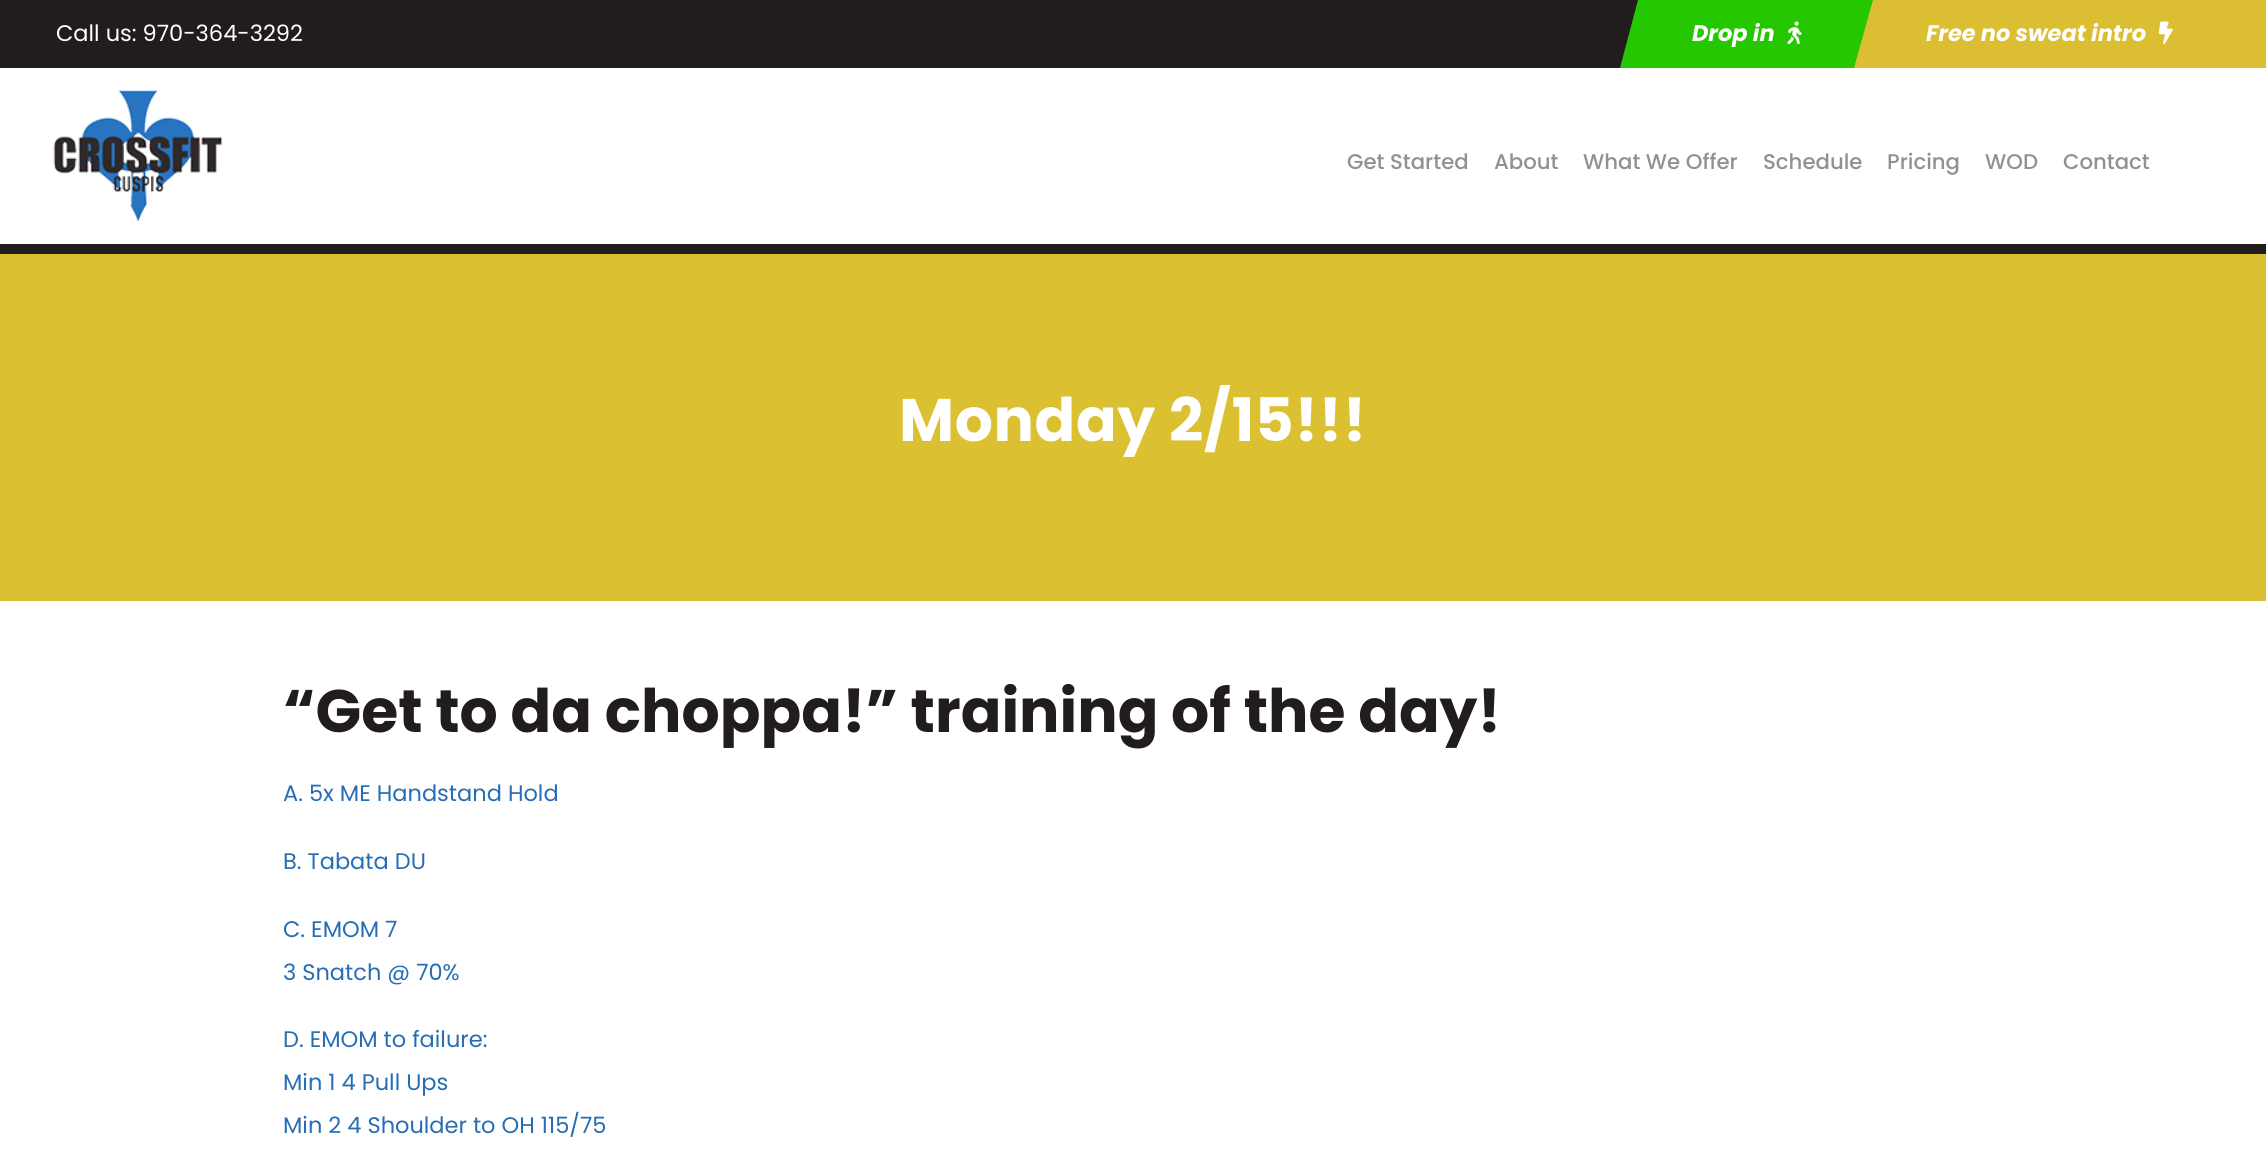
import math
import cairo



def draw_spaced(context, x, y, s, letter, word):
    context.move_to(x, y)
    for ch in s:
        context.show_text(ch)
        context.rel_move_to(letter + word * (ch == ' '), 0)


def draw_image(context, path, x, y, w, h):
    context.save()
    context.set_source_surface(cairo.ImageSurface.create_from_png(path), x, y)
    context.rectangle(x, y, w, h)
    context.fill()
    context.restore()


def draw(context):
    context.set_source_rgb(1, 1, 1)
    context.paint()
    context.set_source_rgb(33 / 255, 28 / 255, 30 / 255)
    context.rectangle(0, 0, 1638, 68)
    context.fill()
    context.set_source_rgb(37 / 255, 200 / 255, 0)
    context.new_path()
    context.move_to(1638, 0)
    context.line_to(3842, 0)
    context.line_to(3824, 68)
    context.line_to(1620, 68)
    context.close_path()
    context.fill()
    draw_image(context, "images/1.png", 1787, 21, 15, 23)
    gradient = cairo.LinearGradient(-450, 34, 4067, 34)
    gradient.add_color_stop_rgba(0, 37 / 255, 200 / 255, 0, 1)
    gradient.add_color_stop_rgba(0.5, 38 / 255, 109 / 255, 180 / 255, 1)
    gradient.add_color_stop_rgba(0.5, 219 / 255, 190 / 255, 50 / 255, 1)
    gradient.add_color_stop_rgba(1, 219 / 255, 190 / 255, 50 / 255, 1)
    context.set_source(gradient)
    context.new_path()
    context.move_to(1873, 0)
    context.line_to(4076, 0)
    context.line_to(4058, 68)
    context.line_to(1854, 68)
    context.close_path()
    context.fill()
    draw_image(context, "images/2.png", 2158, 21, 15, 23)
    context.set_source_rgb(33 / 255, 28 / 255, 30 / 255)
    context.rectangle(0, 244, 2266, 10)
    context.fill()
    draw_image(context, "images/3.png", 53, 90, 170, 132)
    context.set_source_rgb(219 / 255, 192 / 255, 50 / 255)
    context.rectangle(0, 254, 2266, 347)
    context.fill()
    context.select_font_face("Poppins")
    context.set_font_size(22.5)
    context.set_source_rgb(1, 1, 1)
    context.move_to(56, 41)
    context.show_text("Call us: 970-364-3292")
    context.select_font_face("Poppins", cairo.FontSlant.ITALIC, cairo.FontWeight.BOLD)
    context.move_to(1692, 41)
    context.show_text("Drop in")
    context.move_to(1926, 41)
    context.show_text("Free no sweat intro")
    context.select_font_face("Poppins Medium")
    context.set_font_size(21.25)
    context.set_source_rgb(145 / 255, 144 / 255, 151 / 255)
    context.move_to(1347, 169)
    context.show_text("Get Started")
    context.move_to(1494, 169)
    context.show_text("About")
    context.move_to(1583, 169)
    context.show_text("What We Offer")
    context.move_to(1763, 169)
    context.show_text("Schedule")
    context.move_to(1887, 169)
    context.show_text("Pricing")
    context.move_to(1985, 169)
    context.show_text("WOD")
    context.move_to(2063, 169)
    context.show_text("Contact")
    context.save()
    context.rectangle(259, 385, 1750, 86)
    context.clip()
    context.select_font_face("Poppins", cairo.FontSlant.NORMAL, cairo.FontWeight.BOLD)
    context.set_font_size(60)
    context.set_source_rgb(1, 1, 1)
    draw_spaced(context, 899, 441, "Monday 2/15!!!", 0.6, 0)
    context.restore()
    context.select_font_face("Poppins", cairo.FontSlant.NORMAL, cairo.FontWeight.BOLD)
    context.set_font_size(60)
    context.set_source_rgb(33 / 255, 28 / 255, 30 / 255)
    context.move_to(283, 732)
    context.show_text("“Get to da choppa!” training of the day!")
    context.select_font_face("Poppins")
    context.set_font_size(22.5)
    context.set_source_rgb(38 / 255, 109 / 255, 180 / 255)
    context.move_to(283, 801)
    context.show_text("A. 5x ME Handstand Hold")
    context.move_to(283, 869)
    context.show_text("B. Tabata DU")
    context.move_to(283, 937)
    context.show_text("C. EMOM 7")
    context.move_to(283, 980)
    context.show_text("3 Snatch @ 70%")
    context.move_to(283, 1047)
    context.show_text("D. EMOM to failure:")
    context.move_to(283, 1090)
    context.show_text("Min 1 4 Pull Ups")
    context.move_to(283, 1133)
    context.show_text("Min 2 4 Shoulder to OH 115/75")


surface = cairo.ImageSurface(cairo.Format.RGB24, 2266, 1162)
context = cairo.Context(surface)
options = cairo.FontOptions()
options.set_hint_metrics(cairo.HintMetrics.OFF)
options.set_hint_style(cairo.HintStyle.NONE)
context.set_font_options(options)
context.set_miter_limit(4)
draw(context)
surface.write_to_png("out.png")
